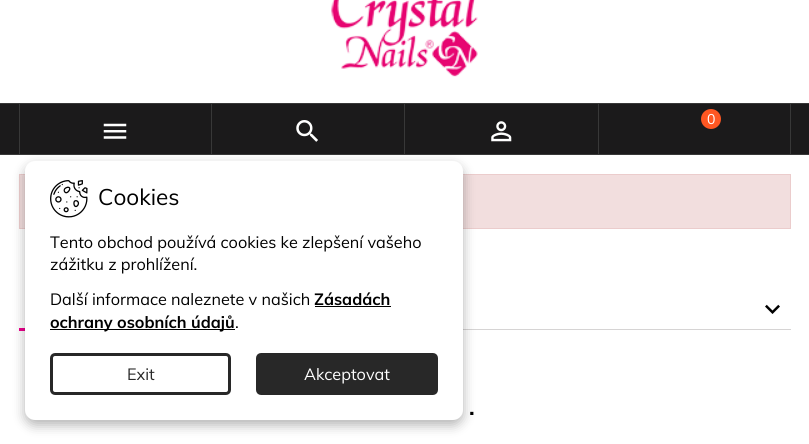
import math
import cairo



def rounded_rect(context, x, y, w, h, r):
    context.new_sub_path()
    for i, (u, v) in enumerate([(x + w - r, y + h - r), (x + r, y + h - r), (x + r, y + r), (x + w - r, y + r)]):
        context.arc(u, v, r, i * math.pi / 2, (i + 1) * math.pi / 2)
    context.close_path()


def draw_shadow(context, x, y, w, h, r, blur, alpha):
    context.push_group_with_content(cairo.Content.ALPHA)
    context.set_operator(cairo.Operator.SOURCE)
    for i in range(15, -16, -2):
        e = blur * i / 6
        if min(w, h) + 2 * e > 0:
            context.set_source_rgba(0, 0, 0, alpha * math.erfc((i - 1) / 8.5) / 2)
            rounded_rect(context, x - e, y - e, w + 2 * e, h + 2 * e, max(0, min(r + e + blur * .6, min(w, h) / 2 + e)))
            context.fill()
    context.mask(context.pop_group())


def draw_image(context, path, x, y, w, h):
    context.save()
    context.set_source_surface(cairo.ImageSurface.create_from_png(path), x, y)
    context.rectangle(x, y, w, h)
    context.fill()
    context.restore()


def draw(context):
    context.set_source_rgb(1, 1, 1)
    context.paint()
    draw_image(context, "images/1.png", 331, 0, 147, 77)
    context.set_source_rgb(27 / 255, 26 / 255, 27 / 255)
    context.rectangle(0, 104, 809, 50)
    context.fill()
    context.set_source_rgb(56 / 255, 56 / 255, 56 / 255)
    context.rectangle(0, 103, 809, 1)
    context.fill()
    context.rectangle(0, 154, 809, 1)
    context.fill()
    context.rectangle(211, 104, 1, 50)
    context.fill()
    context.rectangle(19, 104, 1, 50)
    context.fill()
    draw_image(context, "images/2.png", 103, 123, 24, 16)
    context.rectangle(404, 104, 1, 50)
    context.fill()
    draw_image(context, "images/3.png", 296, 120, 22, 22)
    context.rectangle(598, 104, 1, 50)
    context.fill()
    draw_image(context, "images/4.png", 491, 121, 21, 21)
    context.rectangle(790, 104, 1, 50)
    context.fill()
    context.set_source_rgb(1, 87 / 255, 34 / 255)
    context.arc(711, 119, 10, 0, 2 * math.pi)
    context.fill()
    context.set_source_rgb(242 / 255, 222 / 255, 222 / 255)
    context.rectangle(19.5, 174.5, 771, 54)
    context.fill_preserve()
    context.set_source_rgb(235 / 255, 204 / 255, 204 / 255)
    context.set_line_width(1)
    context.stroke()
    context.set_source_rgb(214 / 255, 212 / 255, 212 / 255)
    context.rectangle(463, 329, 328, 1)
    context.fill()
    context.set_source_rgb(236 / 255, 0, 140 / 255)
    context.rectangle(19, 328, 6, 3)
    context.fill()
    context.set_source_rgb(0, 0, 0)
    draw_shadow(context, 25, 166, 438, 259, 10, 6, 0.3)
    context.set_source_rgb(1, 1, 1)
    rounded_rect(context, 25, 161, 438, 259, 10)
    context.fill()
    draw_image(context, "images/5.png", 50, 180, 38, 38)
    context.set_source_rgb(0, 0, 0)
    context.rectangle(315, 306, 76, 1)
    context.fill()
    context.rectangle(50, 329, 185, 1)
    context.fill()
    rounded_rect(context, 51.5, 354.5, 178, 39, 3.5)
    context.set_source_rgb(40 / 255, 40 / 255, 40 / 255)
    context.set_line_width(3)
    context.stroke()
    rounded_rect(context, 257.5, 354.5, 179, 39, 3.5)
    context.fill_preserve()
    context.stroke()
    draw_image(context, "images/6.png", 765, 304, 15, 10)
    context.select_font_face("Muli")
    context.set_font_size(14)
    context.set_source_rgb(1, 1, 1)
    context.move_to(707, 124)
    context.show_text("0")
    context.set_font_size(22.5)
    context.set_source_rgb(0, 0, 0)
    context.move_to(98, 205)
    context.show_text("Cookies")
    context.set_font_size(16.25)
    context.move_to(50, 248)
    context.show_text("Tento obchod používá cookies ke zlepšení vašeho")
    context.move_to(50, 270)
    context.show_text("zážitku z prohlížení.")
    context.move_to(50, 305)
    context.show_text("Další informace naleznete v našich")
    context.select_font_face("Muli", cairo.FontSlant.NORMAL, cairo.FontWeight.BOLD)
    context.move_to(314, 305)
    context.show_text("Zásadách")
    context.move_to(50, 328)
    context.show_text("ochrany osobních údajů")
    context.select_font_face("Muli")
    context.move_to(235, 328)
    context.show_text(".")
    context.set_source_rgb(40 / 255, 40 / 255, 40 / 255)
    context.move_to(127, 380)
    context.show_text("Exit")
    context.set_source_rgb(1, 1, 1)
    context.move_to(304, 380)
    context.show_text("Akceptovat")
    context.select_font_face("Muli", cairo.FontSlant.NORMAL, cairo.FontWeight.BOLD)
    context.set_font_size(22.5)
    context.set_source_rgb(0, 0, 0)
    context.move_to(469, 415)
    context.show_text(".")


surface = cairo.ImageSurface(cairo.Format.RGB24, 809, 444)
context = cairo.Context(surface)
options = cairo.FontOptions()
options.set_hint_metrics(cairo.HintMetrics.OFF)
options.set_hint_style(cairo.HintStyle.NONE)
context.set_font_options(options)
context.set_miter_limit(4)
draw(context)
surface.write_to_png("out.png")
